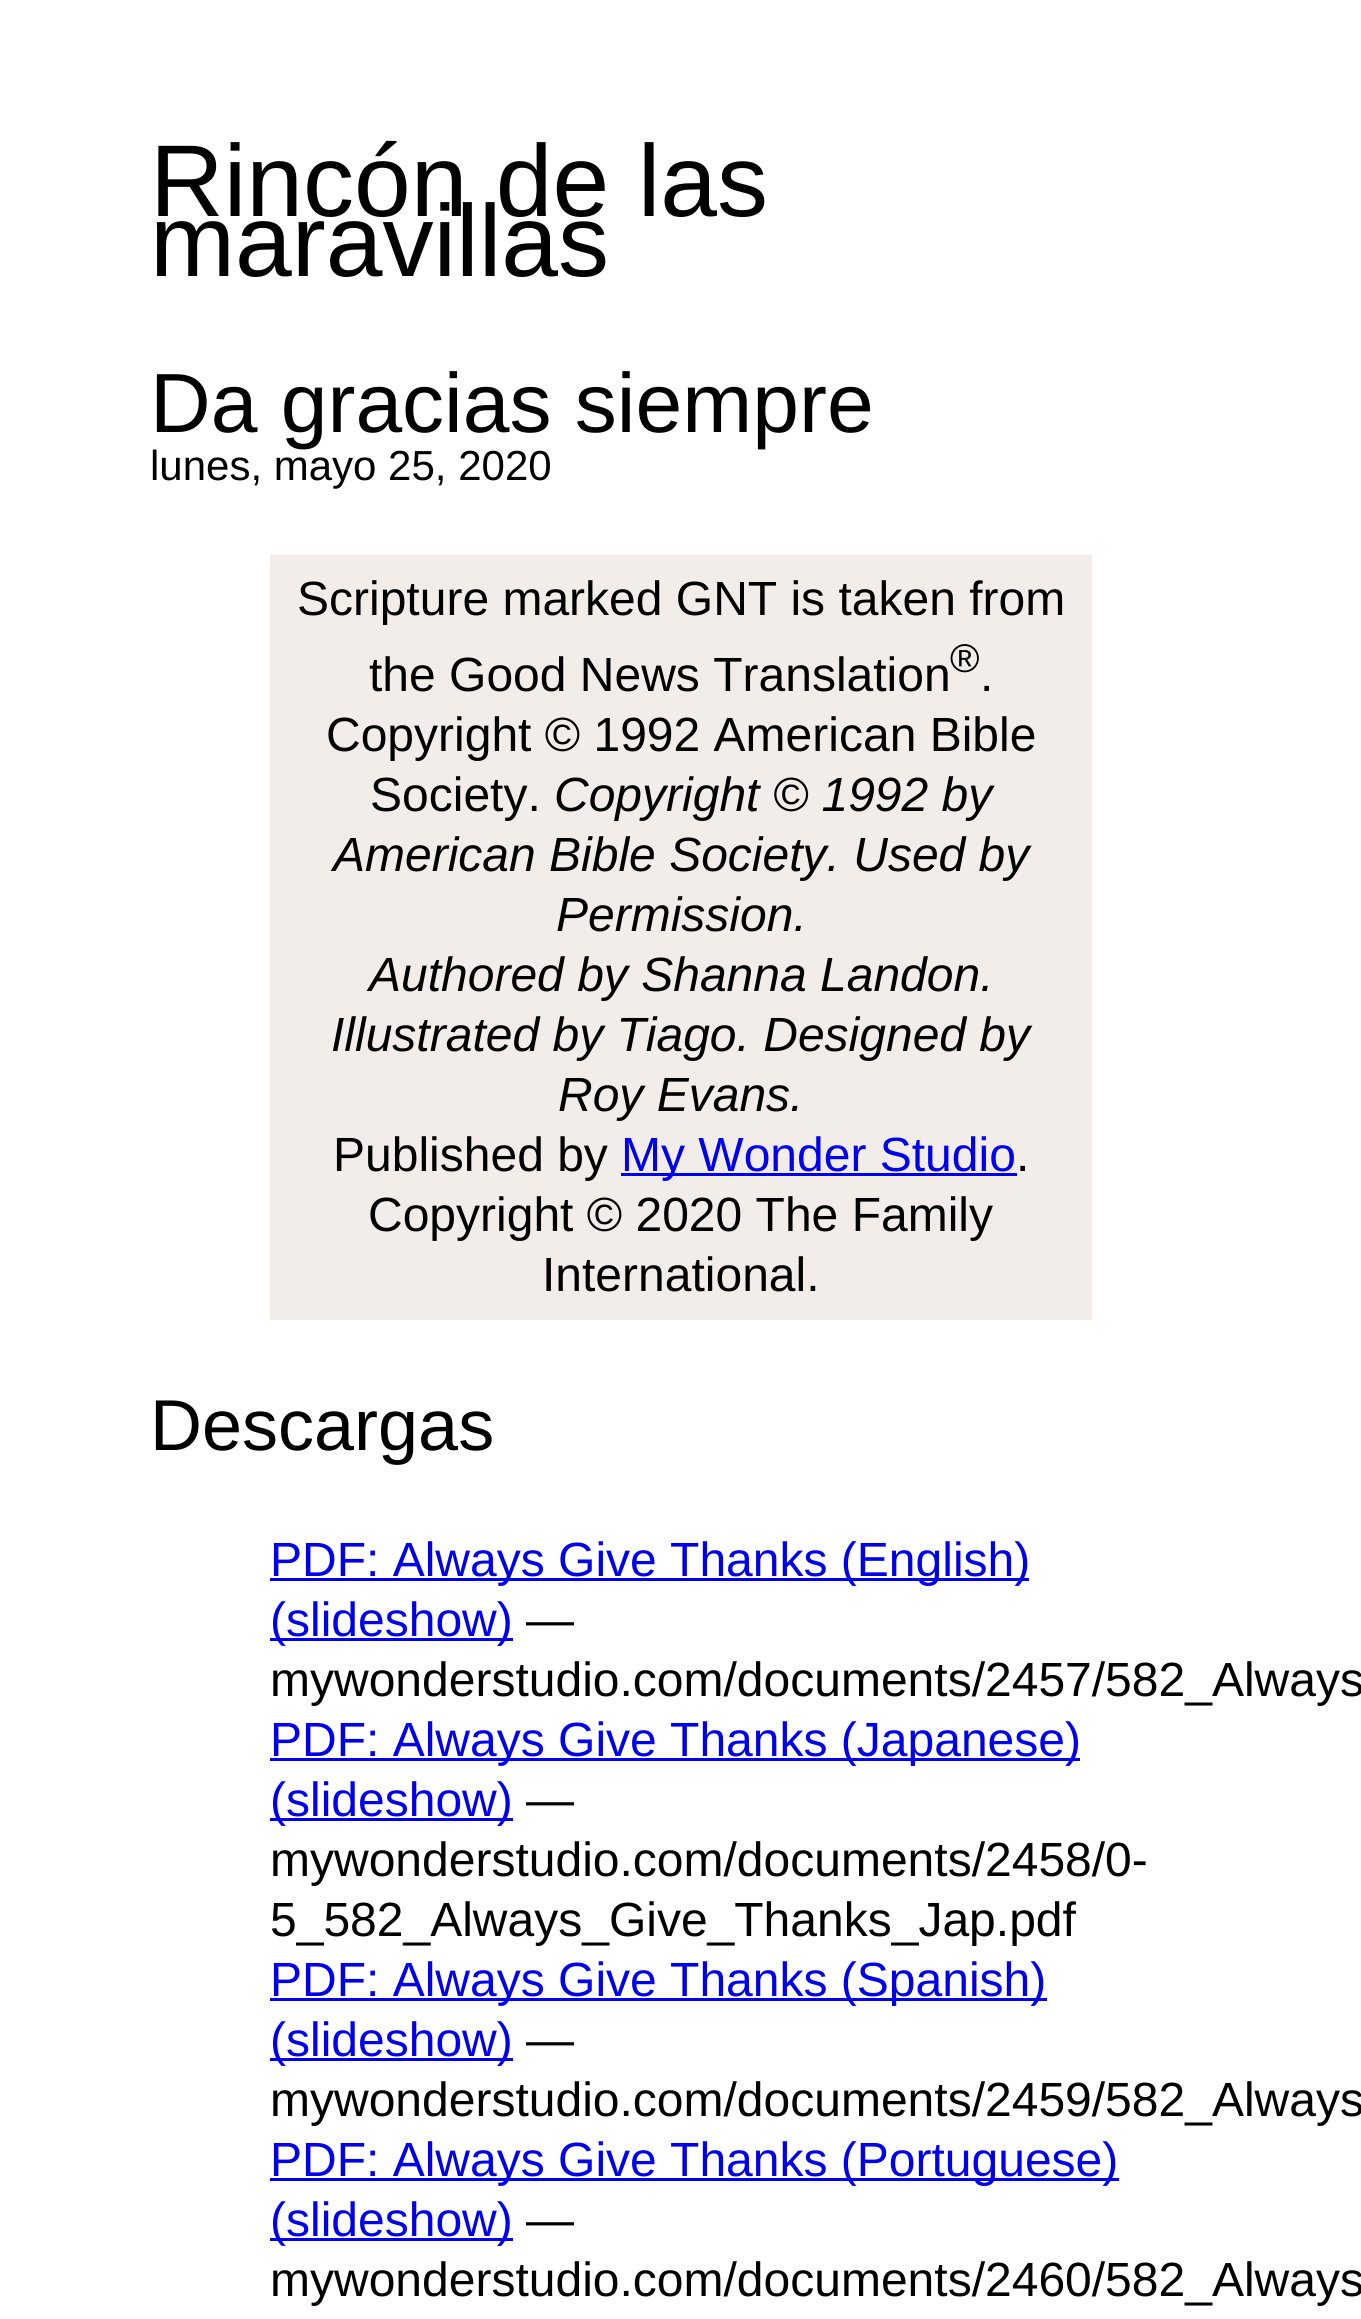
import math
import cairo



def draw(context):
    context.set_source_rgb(1, 1, 1)
    context.paint()
    context.set_source_rgb(242 / 255, 237 / 255, 233 / 255)
    context.rectangle(270, 555, 822, 765)
    context.fill()
    context.set_source_rgb(0, 0, 238 / 255)
    context.rectangle(621, 1173, 396, 3)
    context.fill()
    context.rectangle(270, 1578, 759, 3)
    context.fill()
    context.rectangle(270, 1638, 243, 3)
    context.fill()
    context.rectangle(270, 1758, 810, 3)
    context.fill()
    context.rectangle(270, 1818, 243, 3)
    context.fill()
    context.rectangle(270, 1998, 777, 3)
    context.fill()
    context.rectangle(270, 2058, 243, 3)
    context.fill()
    context.rectangle(270, 2178, 849, 3)
    context.fill()
    context.rectangle(270, 2238, 243, 3)
    context.fill()
    context.select_font_face("Liberation Sans")
    context.set_font_size(102)
    context.set_source_rgb(0, 0, 0)
    context.move_to(150, 216)
    context.show_text("Rincón de las")
    context.move_to(150, 276)
    context.show_text("maravillas")
    context.set_font_size(84)
    context.move_to(150, 432)
    context.show_text("Da gracias siempre")
    context.set_font_size(42)
    context.move_to(150, 480)
    context.show_text("lunes, mayo 25, 2020")
    context.set_font_size(48)
    context.move_to(297, 615)
    context.show_text("Scripture marked GNT is taken from")
    context.move_to(369, 691)
    context.show_text("the Good News Translation")
    context.set_font_size(40)
    context.move_to(950, 672)
    context.show_text("®")
    context.set_font_size(48)
    context.move_to(980, 691)
    context.show_text(".")
    context.move_to(326, 751)
    context.show_text("Copyright © 1992 American Bible")
    context.move_to(370, 811)
    context.show_text("Society.")
    context.select_font_face("Liberation Sans", cairo.FontSlant.ITALIC)
    context.move_to(554, 811)
    context.show_text("Copyright © 1992 by")
    context.move_to(333, 871)
    context.show_text("American Bible Society. Used by")
    context.move_to(556, 931)
    context.show_text("Permission.")
    context.move_to(369, 991)
    context.show_text("Authored by Shanna Landon.")
    context.move_to(331, 1051)
    context.show_text("Illustrated by Tiago. Designed by")
    context.move_to(558, 1111)
    context.show_text("Roy Evans.")
    context.select_font_face("Liberation Sans")
    context.move_to(333, 1171)
    context.show_text("Published by")
    context.set_source_rgb(0, 0, 238 / 255)
    context.move_to(621, 1171)
    context.show_text("My Wonder Studio")
    context.set_source_rgb(0, 0, 0)
    context.move_to(1016, 1171)
    context.show_text(".")
    context.move_to(368, 1231)
    context.show_text("Copyright © 2020 The Family")
    context.move_to(542, 1291)
    context.show_text("International.")
    context.set_font_size(72)
    context.move_to(150, 1450)
    context.show_text("Descargas")
    context.set_font_size(48)
    context.set_source_rgb(0, 0, 238 / 255)
    context.move_to(270, 1576)
    context.show_text("PDF: Always Give Thanks (English)")
    context.move_to(270, 1636)
    context.show_text("(slideshow)")
    context.set_source_rgb(0, 0, 0)
    context.move_to(526, 1636)
    context.show_text("—")
    context.move_to(270, 1696)
    context.show_text("mywonderstudio.com/documents/2457/582_Always")
    context.set_source_rgb(0, 0, 238 / 255)
    context.move_to(270, 1756)
    context.show_text("PDF: Always Give Thanks (Japanese)")
    context.move_to(270, 1816)
    context.show_text("(slideshow)")
    context.set_source_rgb(0, 0, 0)
    context.move_to(526, 1816)
    context.show_text("—")
    context.move_to(270, 1876)
    context.show_text("mywonderstudio.com/documents/2458/0-")
    context.move_to(270, 1936)
    context.show_text("5_582_Always_Give_Thanks_Jap.pdf")
    context.set_source_rgb(0, 0, 238 / 255)
    context.move_to(270, 1996)
    context.show_text("PDF: Always Give Thanks (Spanish)")
    context.move_to(270, 2056)
    context.show_text("(slideshow)")
    context.set_source_rgb(0, 0, 0)
    context.move_to(526, 2056)
    context.show_text("—")
    context.move_to(270, 2116)
    context.show_text("mywonderstudio.com/documents/2459/582_Always")
    context.set_source_rgb(0, 0, 238 / 255)
    context.move_to(270, 2176)
    context.show_text("PDF: Always Give Thanks (Portuguese)")
    context.move_to(270, 2236)
    context.show_text("(slideshow)")
    context.set_source_rgb(0, 0, 0)
    context.move_to(526, 2236)
    context.show_text("—")
    context.move_to(270, 2296)
    context.show_text("mywonderstudio.com/documents/2460/582_Always")


surface = cairo.ImageSurface(cairo.Format.RGB24, 1361, 2319)
context = cairo.Context(surface)
options = cairo.FontOptions()
options.set_hint_metrics(cairo.HintMetrics.OFF)
options.set_hint_style(cairo.HintStyle.NONE)
context.set_font_options(options)
context.set_miter_limit(4)
draw(context)
surface.write_to_png("out.png")
